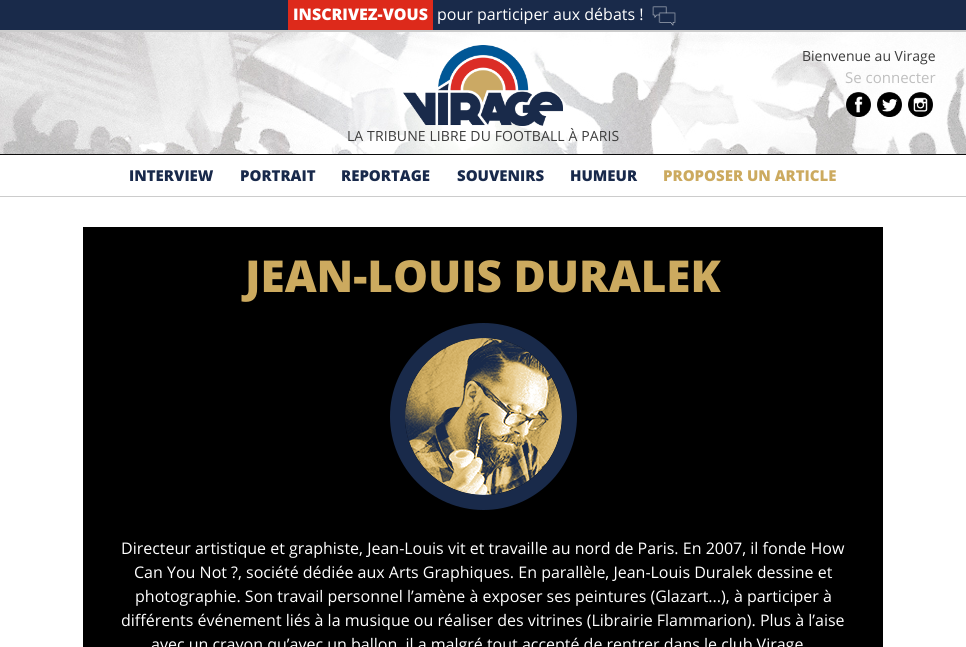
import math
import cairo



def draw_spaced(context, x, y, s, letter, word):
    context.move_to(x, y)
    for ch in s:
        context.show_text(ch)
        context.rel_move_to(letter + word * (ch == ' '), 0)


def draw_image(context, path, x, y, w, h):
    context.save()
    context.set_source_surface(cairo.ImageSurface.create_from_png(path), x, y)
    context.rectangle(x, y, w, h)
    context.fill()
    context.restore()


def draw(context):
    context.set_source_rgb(1, 1, 1)
    context.paint()
    context.set_source_rgb(25 / 255, 42 / 255, 74 / 255)
    context.rectangle(0, 0, 966, 30)
    context.fill()
    context.set_source_rgb(204 / 255, 204 / 255, 204 / 255)
    context.rectangle(0, 30, 966, 2)
    context.fill()
    context.set_source_rgb(221 / 255, 42 / 255, 27 / 255)
    context.rectangle(288, 0, 145, 30)
    context.fill()
    draw_image(context, "images/1.png", 652, 6, 24, 20)
    draw_image(context, "images/2.png", 0, 32, 966, 123)
    context.set_source_rgb(204 / 255, 204 / 255, 204 / 255)
    context.rectangle(0, 196, 966, 1)
    context.fill()
    draw_image(context, "images/3.png", 403, 45, 160, 81)
    draw_image(context, "images/4.png", 846, 92, 25, 25)
    draw_image(context, "images/5.png", 877, 92, 25, 25)
    draw_image(context, "images/6.png", 908, 92, 25, 25)
    context.set_source_rgb(0, 0, 0)
    context.rectangle(83, 227, 800, 420)
    context.fill()
    context.arc(483.5, 416.5, 86, 0, 2 * math.pi)
    context.set_source_rgb(25 / 255, 42 / 255, 74 / 255)
    context.set_line_width(15)
    context.stroke()
    context.arc(483.5, 416.5, 78.5, 0, 2 * math.pi)
    context.fill()
    draw_image(context, "images/7.png", 405, 338, 157, 157)
    context.select_font_face("Open Sans ExtraBold")
    context.set_font_size(16)
    context.set_source_rgb(1, 1, 1)
    context.move_to(293, 20)
    context.show_text("INSCRIVEZ-VOUS")
    context.select_font_face("Open Sans")
    context.move_to(437, 20)
    context.show_text("pour participer aux débats !")
    context.set_font_size(14)
    context.set_source_rgb(60 / 255, 60 / 255, 60 / 255)
    context.move_to(802, 61)
    context.show_text("Bienvenue au Virage")
    context.set_font_size(15)
    context.set_source_rgb(191 / 255, 191 / 255, 191 / 255)
    context.move_to(845, 83)
    context.show_text("Se connecter")
    context.set_font_size(14)
    context.set_source_rgb(60 / 255, 60 / 255, 60 / 255)
    draw_spaced(context, 347, 141, "LA TRIBUNE LIBRE DU FOOTBALL À PARIS", 0.1, 0)
    context.select_font_face("Open Sans ExtraBold")
    context.set_font_size(15)
    context.set_source_rgb(24 / 255, 41 / 255, 75 / 255)
    context.move_to(129, 181)
    context.show_text("INTERVIEW")
    context.move_to(240, 181)
    context.show_text("PORTRAIT")
    context.move_to(341, 181)
    context.show_text("REPORTAGE")
    context.move_to(457, 181)
    context.show_text("SOUVENIRS")
    context.move_to(570, 181)
    context.show_text("HUMEUR")
    context.set_source_rgb(204 / 255, 170 / 255, 95 / 255)
    context.move_to(663, 181)
    context.show_text("PROPOSER UN ARTICLE")
    context.set_font_size(44)
    context.move_to(245, 292)
    context.show_text("JEAN-LOUIS DURALEK")
    context.select_font_face("Open Sans")
    context.set_font_size(16)
    context.set_source_rgb(1, 1, 1)
    context.move_to(121, 554)
    context.show_text("Directeur artistique et graphiste, Jean-Louis vit et travaille au nord de Paris. En 2007, il fonde How")
    context.move_to(134, 578)
    context.show_text("Can You Not ?, société dédiée aux Arts Graphiques. En parallèle, Jean-Louis Duralek dessine et")
    context.move_to(135, 602)
    context.show_text("photographie. Son travail personnel l’amène à exposer ses peintures (Glazart...), à participer à")
    context.move_to(121, 626)
    context.show_text("différents événement liés à la musique ou réaliser des vitrines (Librairie Flammarion). Plus à l’aise")
    context.move_to(151, 650)
    context.show_text("avec un crayon qu’avec un ballon, il a malgré tout accepté de rentrer dans le club Virage")


surface = cairo.ImageSurface(cairo.Format.RGB24, 966, 647)
context = cairo.Context(surface)
options = cairo.FontOptions()
options.set_hint_metrics(cairo.HintMetrics.OFF)
options.set_hint_style(cairo.HintStyle.NONE)
context.set_font_options(options)
context.set_miter_limit(4)
draw(context)
surface.write_to_png("out.png")
